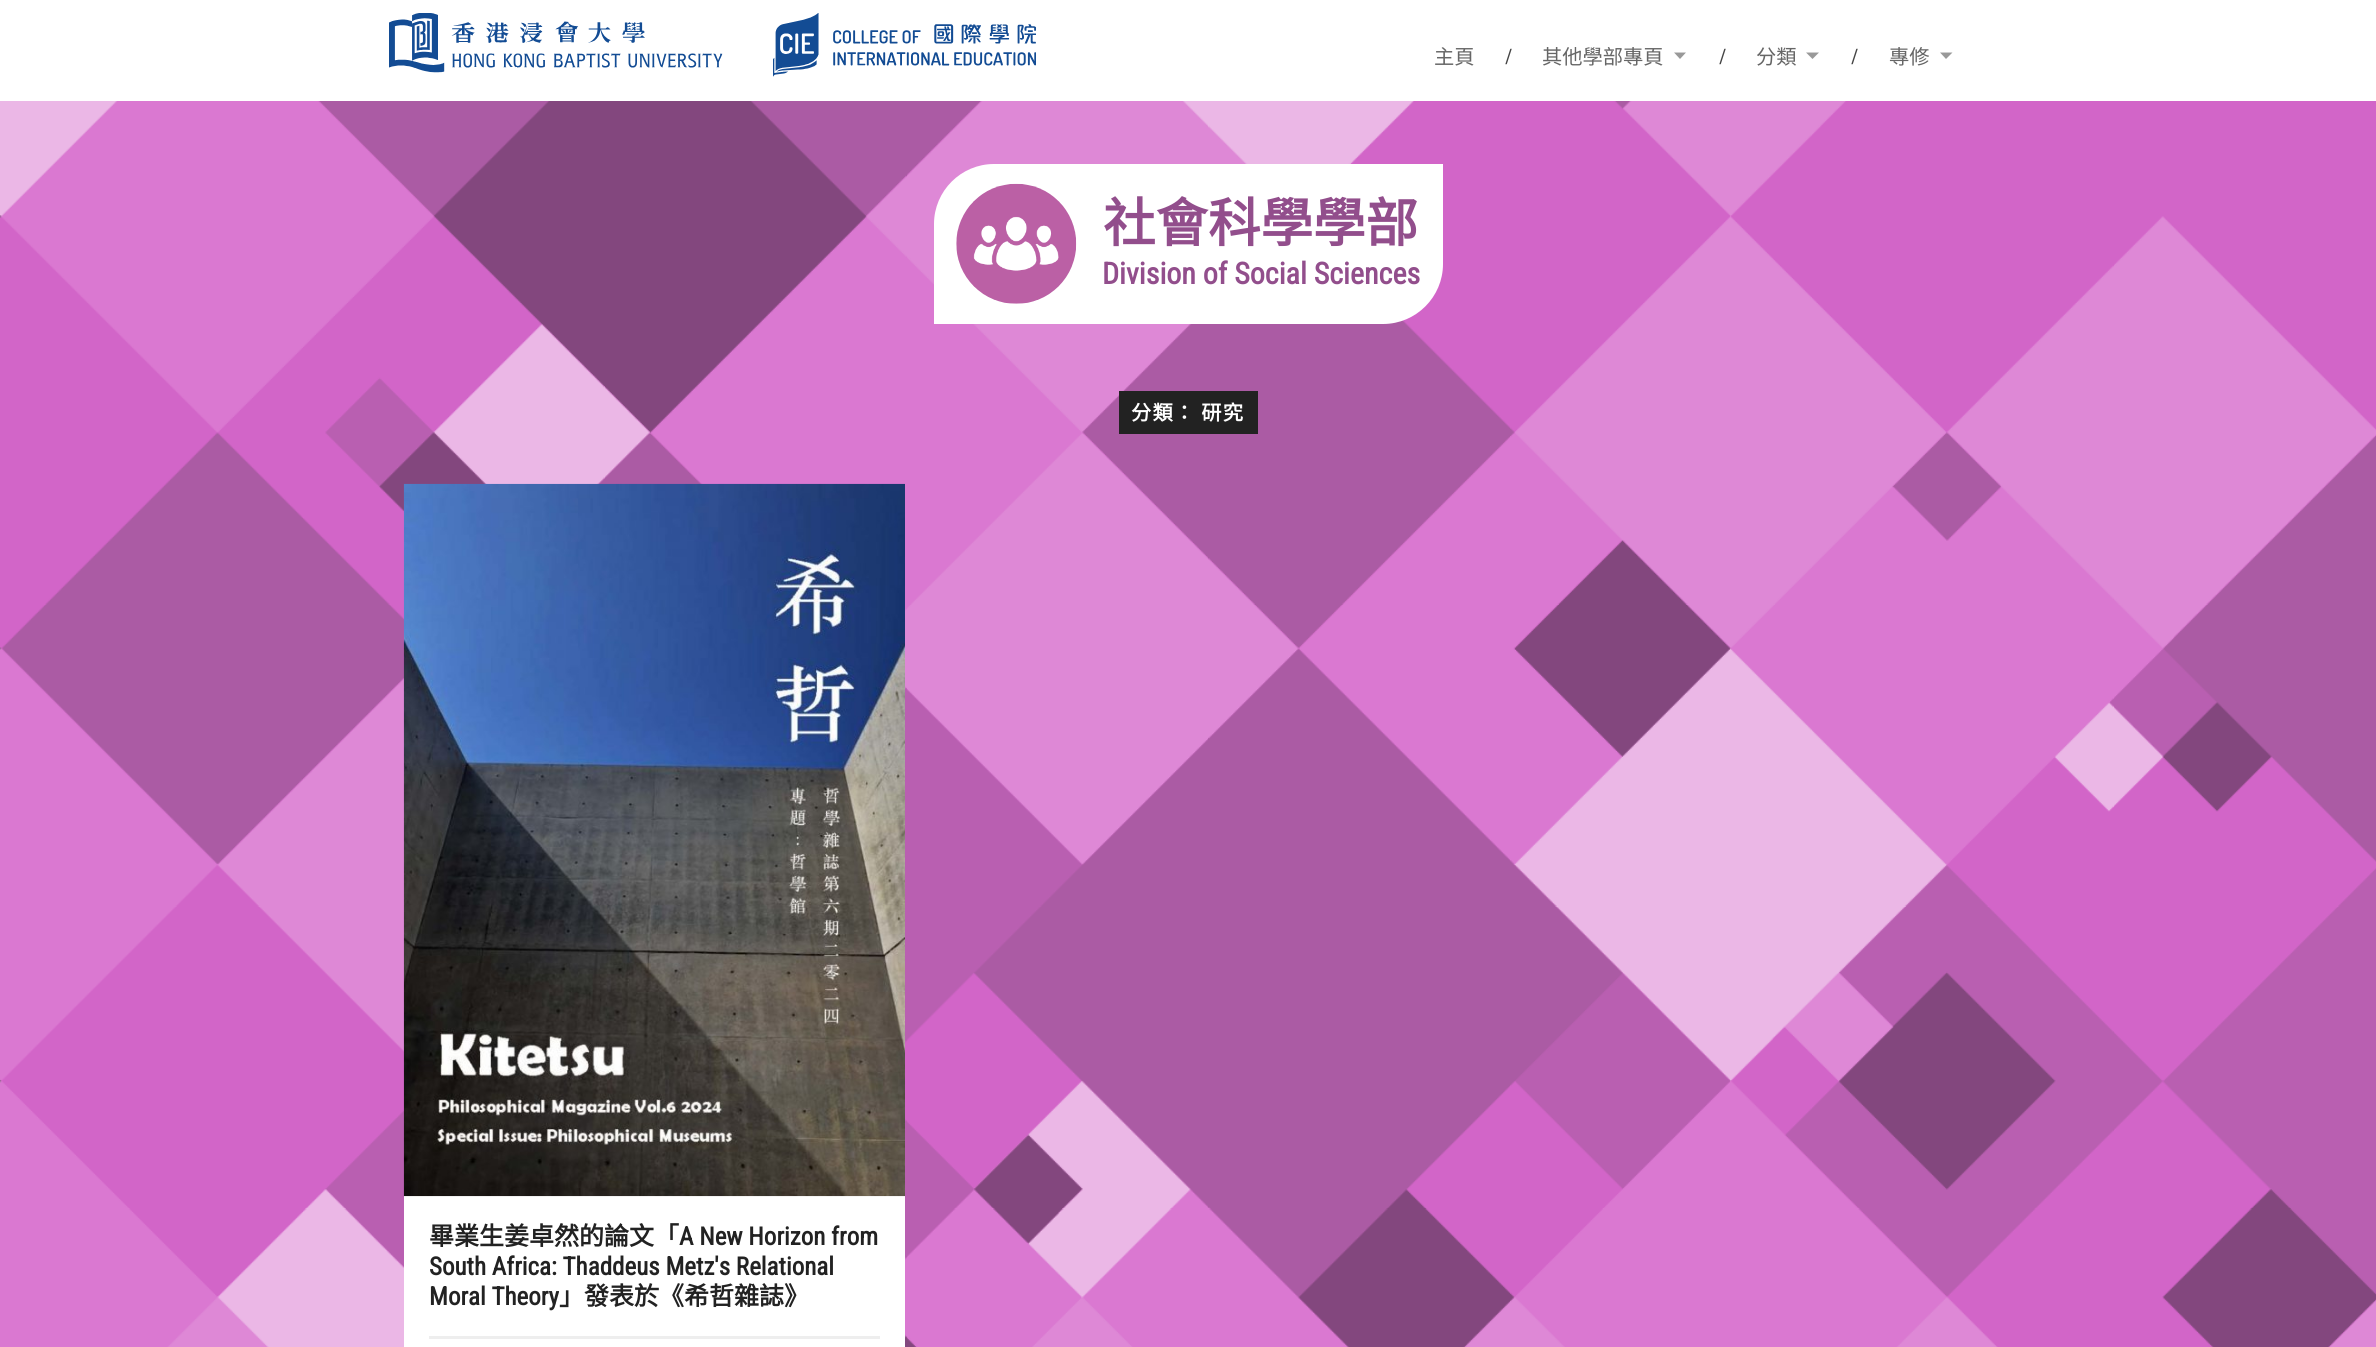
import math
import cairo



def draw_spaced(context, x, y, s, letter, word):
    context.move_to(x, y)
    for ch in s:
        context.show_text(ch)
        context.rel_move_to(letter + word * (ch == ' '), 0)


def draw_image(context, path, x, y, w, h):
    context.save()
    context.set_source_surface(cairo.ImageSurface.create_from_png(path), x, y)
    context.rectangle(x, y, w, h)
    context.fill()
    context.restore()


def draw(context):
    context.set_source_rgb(1, 1, 1)
    context.paint()
    draw_image(context, "images/1.png", 0, 101, 2376, 1246)
    draw_image(context, "images/2.png", 389, 13, 334, 60)
    draw_image(context, "images/3.png", 773, 13, 263, 64)
    context.set_source_rgb(153 / 255, 153 / 255, 153 / 255)
    context.new_path()
    context.move_to(1674, 52.5)
    context.line_to(1686, 52.5)
    context.line_to(1680, 59)
    context.close_path()
    context.fill()
    context.new_path()
    context.move_to(1806, 52.5)
    context.line_to(1819, 52.5)
    context.line_to(1812.5, 59)
    context.close_path()
    context.fill()
    context.new_path()
    context.move_to(1940, 52.5)
    context.line_to(1952.5, 52.5)
    context.line_to(1946, 59)
    context.close_path()
    context.fill()
    context.set_source_rgb(1, 1, 1)
    context.new_path()
    context.move_to(994, 164)
    context.line_to(1443, 164)
    context.line_to(1443, 264)
    context.curve_to(1443, 297, 1416, 324, 1383, 324)
    context.line_to(934, 324)
    context.line_to(934, 224)
    context.curve_to(934, 191, 961, 164, 994, 164)
    context.close_path()
    context.fill()
    draw_image(context, "images/4.png", 956, 183, 121, 121)
    context.set_source_rgb(34 / 255, 34 / 255, 34 / 255)
    context.rectangle(1119, 391, 139, 43)
    context.fill()
    context.set_source_rgb(1, 1, 1)
    context.rectangle(404, 1196, 501, 151)
    context.fill()
    draw_image(context, "images/5.png", 403, 483, 502, 714)
    context.set_source_rgb(238 / 255, 238 / 255, 238 / 255)
    context.rectangle(429, 1336, 451, 3)
    context.fill()
    context.select_font_face("Noto Sans CJK HK")
    context.set_font_size(20.25)
    context.set_source_rgb(102 / 255, 102 / 255, 102 / 255)
    context.move_to(1434, 64)
    context.show_text("主頁")
    context.select_font_face("Roboto Condensed")
    context.set_font_size(20)
    context.set_source_rgb(68 / 255, 68 / 255, 68 / 255)
    context.move_to(1505, 63)
    context.show_text("/")
    context.select_font_face("Noto Sans CJK HK")
    context.set_font_size(20.25)
    context.set_source_rgb(102 / 255, 102 / 255, 102 / 255)
    context.move_to(1542, 64)
    context.show_text("其他學部專頁")
    context.select_font_face("Roboto Condensed")
    context.set_font_size(20)
    context.set_source_rgb(68 / 255, 68 / 255, 68 / 255)
    context.move_to(1719, 63)
    context.show_text("/")
    context.select_font_face("Noto Sans CJK HK")
    context.set_font_size(20.25)
    context.set_source_rgb(102 / 255, 102 / 255, 102 / 255)
    context.move_to(1756, 64)
    context.show_text("分類")
    context.select_font_face("Roboto Condensed")
    context.set_font_size(20)
    context.set_source_rgb(68 / 255, 68 / 255, 68 / 255)
    context.move_to(1851, 63)
    context.show_text("/")
    context.select_font_face("Noto Sans CJK HK")
    context.set_font_size(20.25)
    context.set_source_rgb(102 / 255, 102 / 255, 102 / 255)
    context.move_to(1889, 64)
    context.show_text("專修")
    context.select_font_face("Noto Sans CJK HK", cairo.FontSlant.NORMAL, cairo.FontWeight.BOLD)
    context.set_font_size(52.5)
    context.set_source_rgb(146 / 255, 78 / 255, 140 / 255)
    context.move_to(1103, 242)
    context.show_text("社會科學學部")
    context.select_font_face("Roboto Condensed", cairo.FontSlant.NORMAL, cairo.FontWeight.BOLD)
    context.set_font_size(30)
    context.move_to(1102, 284)
    context.show_text("Division of Social Sciences")
    context.select_font_face("Noto Sans CJK HK", cairo.FontSlant.NORMAL, cairo.FontWeight.BOLD)
    context.set_font_size(20.25)
    context.set_source_rgb(1, 1, 1)
    draw_spaced(context, 1131, 420, "分類： 研究", 1.25, 0)
    context.set_font_size(25)
    context.set_source_rgb(34 / 255, 34 / 255, 34 / 255)
    context.move_to(429, 1245)
    context.show_text("畢業生姜卓然的論文「")
    context.select_font_face("Roboto Condensed", cairo.FontSlant.NORMAL, cairo.FontWeight.BOLD)
    context.move_to(679, 1245)
    context.show_text("A New Horizon from")
    context.move_to(429, 1275)
    context.show_text("South Africa: Thaddeus Metz's Relational")
    context.move_to(429, 1305)
    context.show_text("Moral Theory")
    context.select_font_face("Noto Sans CJK HK", cairo.FontSlant.NORMAL, cairo.FontWeight.BOLD)
    context.move_to(559, 1305)
    context.show_text("」發表於《希哲雜誌》")


surface = cairo.ImageSurface(cairo.Format.RGB24, 2376, 1347)
context = cairo.Context(surface)
options = cairo.FontOptions()
options.set_hint_metrics(cairo.HintMetrics.OFF)
options.set_hint_style(cairo.HintStyle.NONE)
context.set_font_options(options)
context.set_miter_limit(4)
draw(context)
surface.write_to_png("out.png")
